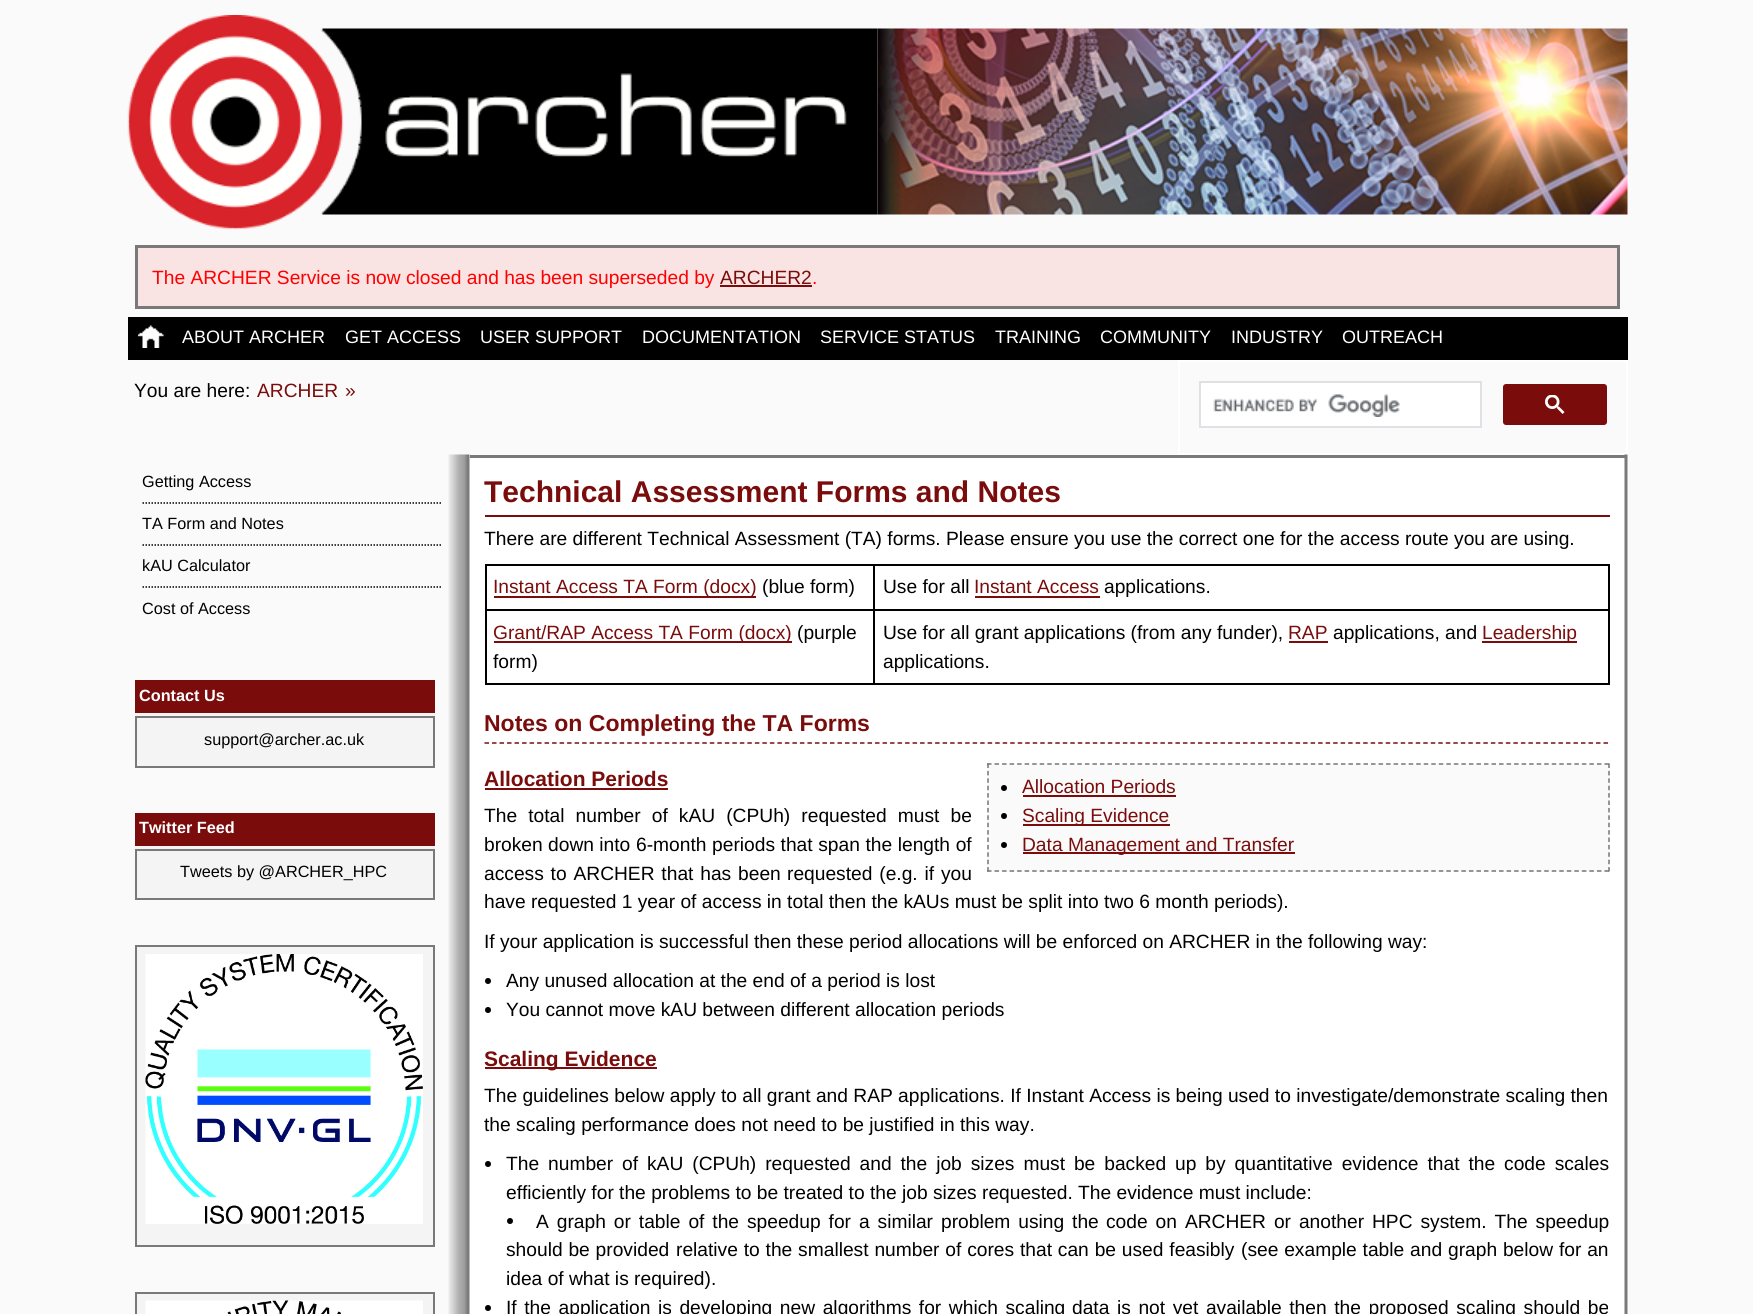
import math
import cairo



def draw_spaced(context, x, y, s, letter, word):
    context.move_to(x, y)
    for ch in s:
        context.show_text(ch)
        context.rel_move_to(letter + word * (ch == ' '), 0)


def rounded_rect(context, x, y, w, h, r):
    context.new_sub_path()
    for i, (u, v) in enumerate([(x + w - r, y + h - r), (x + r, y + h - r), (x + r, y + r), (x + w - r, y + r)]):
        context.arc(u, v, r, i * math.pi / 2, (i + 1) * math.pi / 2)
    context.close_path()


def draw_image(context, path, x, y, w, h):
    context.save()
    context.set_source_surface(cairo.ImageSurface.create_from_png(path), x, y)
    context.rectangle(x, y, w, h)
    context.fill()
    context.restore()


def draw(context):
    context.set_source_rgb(250 / 255, 250 / 255, 250 / 255)
    context.paint()
    draw_image(context, "images/1.png", 127, 15, 751, 215)
    draw_image(context, "images/2.png", 877, 28, 751, 187)
    context.set_source_rgb(250 / 255, 227 / 255, 227 / 255)
    context.rectangle(136.5, 246.5, 1482, 61)
    context.fill_preserve()
    context.set_source_rgb(121 / 255, 121 / 255, 121 / 255)
    context.set_line_width(3)
    context.stroke()
    context.set_source_rgb(122 / 255, 12 / 255, 12 / 255)
    context.rectangle(720, 285, 92, 2)
    context.fill()
    context.set_source_rgb(0, 0, 0)
    context.rectangle(128, 317, 1500, 43)
    context.fill()
    draw_image(context, "images/3.png", 138, 325, 26, 23)
    context.rectangle(1179, 361, 448, 93)
    context.set_source_rgb(1, 1, 1)
    context.set_line_width(2)
    context.stroke()
    context.rectangle(1200, 382, 281, 45)
    context.fill_preserve()
    context.set_source_rgb(223 / 255, 225 / 255, 229 / 255)
    context.stroke()
    draw_image(context, "images/4.png", 1213, 394, 187, 23)
    context.set_source_rgb(122 / 255, 12 / 255, 12 / 255)
    rounded_rect(context, 1504, 385, 102, 39, 2)
    context.fill_preserve()
    context.stroke()
    draw_image(context, "images/5.png", 1545, 395, 20, 19)
    draw_image(context, "images/6.png", 448, 454, 1180, 860)
    context.new_path()
    context.move_to(142.5, 503)
    context.line_to(442.5, 503)
    context.set_source_rgb(0, 0, 0)
    context.set_line_width(1.5)
    context.set_dash([1.5, 1.5])
    context.stroke()
    context.new_path()
    context.move_to(142.5, 545)
    context.line_to(442.5, 545)
    context.stroke()
    context.new_path()
    context.move_to(142.5, 587)
    context.line_to(442.5, 587)
    context.stroke()
    context.set_source_rgb(244 / 255, 244 / 255, 244 / 255)
    context.rectangle(135, 713, 300, 53)
    context.fill()
    context.set_source_rgb(122 / 255, 12 / 255, 12 / 255)
    context.rectangle(135, 680, 300, 33)
    context.fill()
    context.rectangle(136, 717, 298, 50)
    context.set_source_rgb(121 / 255, 121 / 255, 121 / 255)
    context.set_line_width(2)
    context.set_dash([])
    context.stroke()
    context.set_source_rgb(244 / 255, 244 / 255, 244 / 255)
    context.rectangle(135, 846, 300, 52)
    context.fill()
    context.set_source_rgb(122 / 255, 12 / 255, 12 / 255)
    context.rectangle(135, 813, 300, 33)
    context.fill()
    context.rectangle(136, 850, 298, 49)
    context.set_source_rgb(121 / 255, 121 / 255, 121 / 255)
    context.stroke()
    context.set_source_rgb(244 / 255, 244 / 255, 244 / 255)
    context.rectangle(136, 946, 298, 300)
    context.fill_preserve()
    context.set_source_rgb(121 / 255, 121 / 255, 121 / 255)
    context.stroke()
    draw_image(context, "images/7.png", 145, 954, 278, 270)
    context.set_source_rgb(244 / 255, 244 / 255, 244 / 255)
    context.rectangle(136, 1293, 298, 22)
    context.fill_preserve()
    context.set_source_rgb(121 / 255, 121 / 255, 121 / 255)
    context.stroke()
    draw_image(context, "images/8.png", 145, 1300, 278, 14)
    context.rectangle(470, 455, 1155, 3)
    context.fill()
    context.set_source_rgb(122 / 255, 12 / 255, 12 / 255)
    context.rectangle(485, 515, 1125, 2)
    context.fill()
    context.set_source_rgb(0, 0, 0)
    context.rectangle(873, 564, 737, 2)
    context.fill()
    context.rectangle(873, 609, 737, 2)
    context.fill()
    context.rectangle(1608, 609, 2, 75)
    context.fill()
    context.rectangle(873, 683, 737, 2)
    context.fill()
    context.rectangle(873, 609, 2, 75)
    context.fill()
    context.rectangle(485, 609, 390, 2)
    context.fill()
    context.rectangle(873, 564, 2, 47)
    context.fill()
    context.rectangle(485, 564, 390, 2)
    context.fill()
    context.rectangle(485, 683, 390, 2)
    context.fill()
    context.rectangle(485, 609, 2, 75)
    context.fill()
    context.rectangle(485, 564, 2, 47)
    context.fill()
    context.set_source_rgb(122 / 255, 12 / 255, 12 / 255)
    context.rectangle(494, 596, 262, 2)
    context.fill()
    context.set_source_rgb(0, 0, 0)
    context.rectangle(1608, 564, 2, 47)
    context.fill()
    context.set_source_rgb(122 / 255, 12 / 255, 12 / 255)
    context.rectangle(975, 596, 125, 2)
    context.fill()
    context.rectangle(494, 641, 298, 2)
    context.fill()
    context.rectangle(1289, 641, 39, 2)
    context.fill()
    context.rectangle(1482, 641, 95, 2)
    context.fill()
    context.new_path()
    context.move_to(484.5, 743)
    context.line_to(1609.5, 743)
    context.set_line_width(1.5)
    context.set_dash([4.5, 3.01])
    context.stroke()
    context.rectangle(485, 788, 183, 2)
    context.fill()
    context.set_source_rgb(250 / 255, 250 / 255, 250 / 255)
    context.rectangle(987, 764, 623, 108)
    context.fill()
    context.new_path()
    context.move_to(987, 764)
    context.line_to(1609.5, 764)
    context.set_source_rgb(117 / 255, 117 / 255, 117 / 255)
    context.set_dash([4.5, 3.03])
    context.stroke()
    context.new_path()
    context.move_to(1609, 763.5)
    context.line_to(1609, 871.5)
    context.set_dash([4.5, 2.9])
    context.stroke()
    context.new_path()
    context.move_to(987, 871)
    context.line_to(1609.5, 871)
    context.set_dash([4.5, 3.03])
    context.stroke()
    context.new_path()
    context.move_to(988, 763.5)
    context.line_to(988, 871.5)
    context.set_dash([4.5, 2.9])
    context.stroke()
    context.set_source_rgb(0, 0, 0)
    context.arc(1004, 788, 3, 0, 2 * math.pi)
    context.fill()
    context.set_source_rgb(122 / 255, 12 / 255, 12 / 255)
    context.rectangle(1023, 795, 153, 2)
    context.fill()
    context.set_source_rgb(0, 0, 0)
    context.arc(1004, 816, 3, 0, 2 * math.pi)
    context.fill()
    context.set_source_rgb(122 / 255, 12 / 255, 12 / 255)
    context.rectangle(1023, 824, 147, 2)
    context.fill()
    context.set_source_rgb(0, 0, 0)
    context.arc(1004, 845, 3, 0, 2 * math.pi)
    context.fill()
    context.set_source_rgb(122 / 255, 12 / 255, 12 / 255)
    context.rectangle(1023, 852, 272, 2)
    context.fill()
    context.set_source_rgb(0, 0, 0)
    context.arc(488, 981, 3, 0, 2 * math.pi)
    context.fill()
    context.arc(488, 1010, 3, 0, 2 * math.pi)
    context.fill()
    context.set_source_rgb(122 / 255, 12 / 255, 12 / 255)
    context.rectangle(485, 1067, 172, 2)
    context.fill()
    context.set_source_rgb(0, 0, 0)
    context.arc(488, 1164, 3, 0, 2 * math.pi)
    context.fill()
    context.arc(510, 1221, 3, 0, 2 * math.pi)
    context.fill()
    context.arc(488, 1308, 3, 0, 2 * math.pi)
    context.fill()
    context.select_font_face("Liberation Sans")
    context.set_font_size(19.2)
    context.set_source_rgb(1, 0, 0)
    context.move_to(152, 284)
    context.show_text("The ARCHER Service is now closed and has been superseded by")
    context.set_source_rgb(122 / 255, 12 / 255, 12 / 255)
    context.move_to(720, 284)
    context.show_text("ARCHER2")
    context.set_source_rgb(1, 0, 0)
    context.move_to(812, 284)
    context.show_text(".")
    context.set_font_size(18)
    context.set_source_rgb(1, 1, 1)
    context.move_to(182, 343)
    context.show_text("ABOUT ARCHER")
    context.move_to(345, 343)
    context.show_text("GET ACCESS")
    context.move_to(480, 343)
    context.show_text("USER SUPPORT")
    context.move_to(642, 343)
    context.show_text("DOCUMENTATION")
    context.move_to(820, 343)
    context.show_text("SERVICE STATUS")
    context.move_to(995, 343)
    context.show_text("TRAINING")
    context.move_to(1100, 343)
    context.show_text("COMMUNITY")
    context.move_to(1231, 343)
    context.show_text("INDUSTRY")
    context.move_to(1342, 343)
    context.show_text("OUTREACH")
    context.set_font_size(19.2)
    context.set_source_rgb(0, 0, 0)
    context.move_to(134, 397)
    context.show_text("You are here:")
    context.set_source_rgb(122 / 255, 12 / 255, 12 / 255)
    context.move_to(257, 397)
    context.show_text("ARCHER")
    context.move_to(345, 397)
    context.show_text("»")
    context.set_font_size(16.25)
    context.set_source_rgb(0, 0, 0)
    context.move_to(142, 487)
    context.show_text("Getting Access")
    context.move_to(142, 529)
    context.show_text("TA Form and Notes")
    context.move_to(142, 571)
    context.show_text("kAU Calculator")
    context.move_to(142, 614)
    context.show_text("Cost of Access")
    context.select_font_face("Liberation Sans", cairo.FontSlant.NORMAL, cairo.FontWeight.BOLD)
    context.set_source_rgb(1, 1, 1)
    context.move_to(139, 701)
    context.show_text("Contact Us")
    context.select_font_face("Liberation Sans")
    context.set_source_rgb(0, 0, 0)
    context.move_to(204, 745)
    context.show_text("support@archer.ac.uk")
    context.select_font_face("Liberation Sans", cairo.FontSlant.NORMAL, cairo.FontWeight.BOLD)
    context.set_source_rgb(1, 1, 1)
    context.move_to(139, 833)
    context.show_text("Twitter Feed")
    context.select_font_face("Liberation Sans")
    context.set_source_rgb(0, 0, 0)
    context.move_to(180, 877)
    context.show_text("Tweets by @ARCHER_HPC")
    context.select_font_face("Liberation Sans", cairo.FontSlant.NORMAL, cairo.FontWeight.BOLD)
    context.set_font_size(30)
    context.set_source_rgb(122 / 255, 12 / 255, 12 / 255)
    context.move_to(484, 502)
    context.show_text("Technical Assessment Forms and Notes")
    context.select_font_face("Liberation Sans")
    context.set_font_size(19.2)
    context.set_source_rgb(0, 0, 0)
    context.move_to(484, 545)
    context.show_text("There are different Technical Assessment (TA) forms. Please ensure you use the correct one for the access route you are using.")
    context.set_source_rgb(122 / 255, 12 / 255, 12 / 255)
    context.move_to(493, 593)
    context.show_text("Instant Access TA Form (docx)")
    context.set_source_rgb(0, 0, 0)
    context.move_to(762, 593)
    context.show_text("(blue form)")
    context.move_to(883, 593)
    context.show_text("Use for all")
    context.set_source_rgb(122 / 255, 12 / 255, 12 / 255)
    context.move_to(974, 593)
    context.show_text("Instant Access")
    context.set_source_rgb(0, 0, 0)
    context.move_to(1104, 593)
    context.show_text("applications.")
    context.set_source_rgb(122 / 255, 12 / 255, 12 / 255)
    context.move_to(493, 639)
    context.show_text("Grant/RAP Access TA Form (docx)")
    context.set_source_rgb(0, 0, 0)
    context.move_to(797, 639)
    context.show_text("(purple")
    context.move_to(493, 668)
    context.show_text("form)")
    context.move_to(883, 639)
    context.show_text("Use for all grant applications (from any funder),")
    context.set_source_rgb(122 / 255, 12 / 255, 12 / 255)
    context.move_to(1288, 639)
    context.show_text("RAP")
    context.set_source_rgb(0, 0, 0)
    context.move_to(1333, 639)
    context.show_text("applications, and")
    context.set_source_rgb(122 / 255, 12 / 255, 12 / 255)
    context.move_to(1482, 639)
    context.show_text("Leadership")
    context.set_source_rgb(0, 0, 0)
    context.move_to(883, 668)
    context.show_text("applications.")
    context.select_font_face("Liberation Sans", cairo.FontSlant.NORMAL, cairo.FontWeight.BOLD)
    context.set_font_size(23)
    context.set_source_rgb(122 / 255, 12 / 255, 12 / 255)
    context.move_to(484, 731)
    context.show_text("Notes on Completing the TA Forms")
    context.set_font_size(21)
    context.move_to(484, 786)
    context.show_text("Allocation Periods")
    context.select_font_face("Liberation Sans")
    context.set_font_size(19.2)
    context.move_to(1022, 793)
    context.show_text("Allocation Periods")
    context.move_to(1022, 822)
    context.show_text("Scaling Evidence")
    context.move_to(1022, 851)
    context.show_text("Data Management and Transfer")
    context.set_source_rgb(0, 0, 0)
    draw_spaced(context, 484, 822, "The total number of kAU (CPUh) requested must be", 0, 5.75)
    context.move_to(484, 851)
    context.show_text("broken down into")
    draw_spaced(context, 636, 851, "6-month periods that span the length of", 0, 0.25)
    draw_spaced(context, 484, 880, "access to ARCHER that has been", 0, 1.5)
    draw_spaced(context, 787, 880, "requested (e.g. if you", 0, 1.5)
    context.move_to(484, 908)
    context.show_text("have requested 1 year of access in total then the kAUs must be split into two 6 month periods).")
    context.move_to(484, 948)
    context.show_text("If your application is successful then these period allocations will be enforced on ARCHER in the following way:")
    context.move_to(506, 987)
    context.show_text("Any unused allocation at the end of a period is lost")
    context.move_to(506, 1016)
    context.show_text("You cannot move kAU between different allocation periods")
    context.select_font_face("Liberation Sans", cairo.FontSlant.NORMAL, cairo.FontWeight.BOLD)
    context.set_font_size(21)
    context.set_source_rgb(122 / 255, 12 / 255, 12 / 255)
    context.move_to(484, 1066)
    context.show_text("Scaling Evidence")
    context.select_font_face("Liberation Sans")
    context.set_font_size(19.2)
    context.set_source_rgb(0, 0, 0)
    context.move_to(484, 1102)
    context.show_text("The guidelines below apply to all grant and RAP applications. If Instant Access is being used to investigate/demonstrate scaling then")
    context.move_to(484, 1131)
    context.show_text("the scaling performance does not need to be justified in this way.")
    draw_spaced(context, 506, 1170, "The number of kAU (CPUh) requested and the job sizes must be backed", 0, 3.6)
    draw_spaced(context, 1175, 1170, "up by quantitative evidence that the code scales", 0, 3.6)
    context.move_to(506, 1199)
    context.show_text("efficiently for the problems to be treated to the job sizes requested. The evidence must include:")
    draw_spaced(context, 536, 1228, "A graph or table of the speedup for a similar problem using the", 0, 2.6)
    draw_spaced(context, 1106, 1228, "code on ARCHER or another HPC system. The speedup", 0, 2.6)
    draw_spaced(context, 506, 1256, "should be provided", 0, 0.5)
    draw_spaced(context, 676, 1256, "relative to the smallest number of cores that can be used feasibly", 0, 0.5)
    draw_spaced(context, 1241, 1256, "(see example table and graph below for an", 0, 0.5)
    context.move_to(506, 1285)
    context.show_text("idea of what is required).")
    draw_spaced(context, 506, 1314, "If the application is developing new algorithms for which scaling", 0, 2.25)
    draw_spaced(context, 1072, 1314, "data is not yet available then the proposed scaling should be", 0, 2.25)


surface = cairo.ImageSurface(cairo.Format.RGB24, 1753, 1314)
context = cairo.Context(surface)
options = cairo.FontOptions()
options.set_hint_metrics(cairo.HintMetrics.OFF)
options.set_hint_style(cairo.HintStyle.NONE)
context.set_font_options(options)
context.set_miter_limit(4)
draw(context)
surface.write_to_png("out.png")
